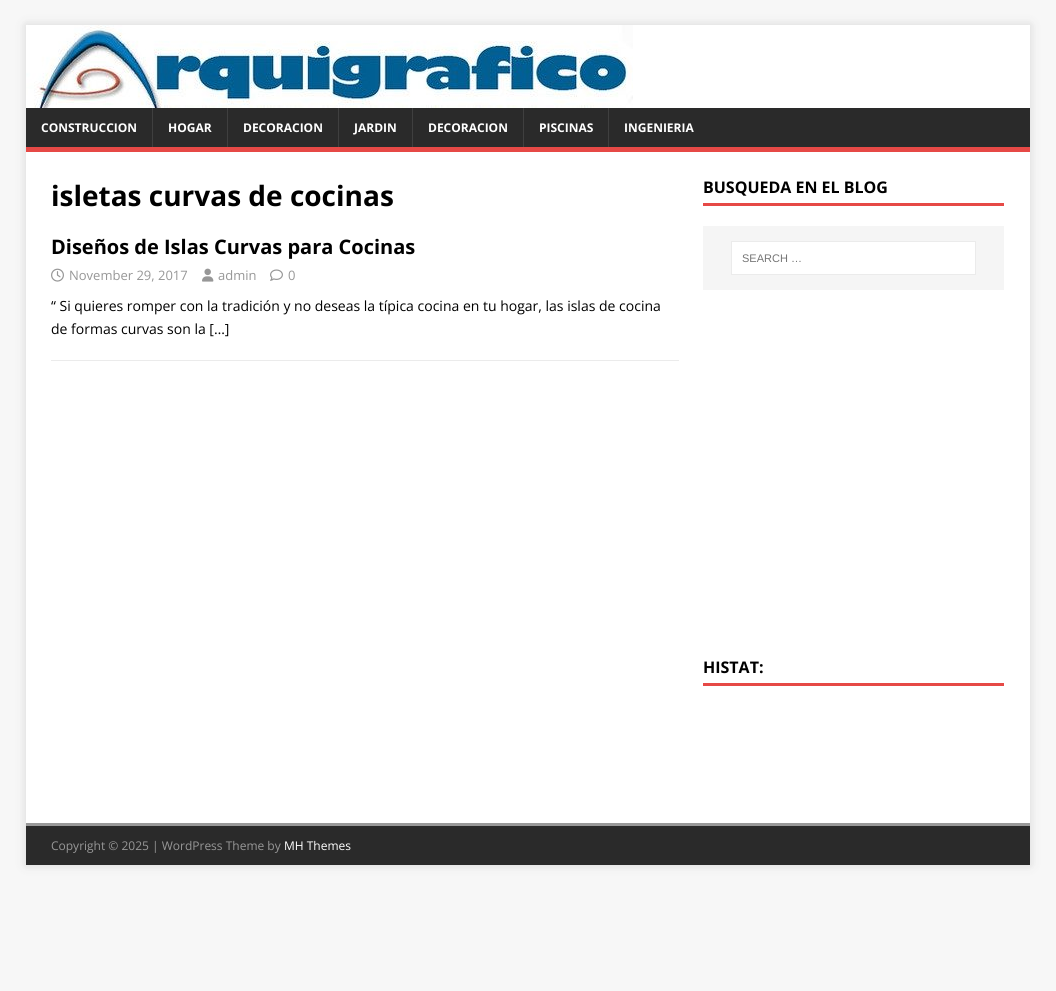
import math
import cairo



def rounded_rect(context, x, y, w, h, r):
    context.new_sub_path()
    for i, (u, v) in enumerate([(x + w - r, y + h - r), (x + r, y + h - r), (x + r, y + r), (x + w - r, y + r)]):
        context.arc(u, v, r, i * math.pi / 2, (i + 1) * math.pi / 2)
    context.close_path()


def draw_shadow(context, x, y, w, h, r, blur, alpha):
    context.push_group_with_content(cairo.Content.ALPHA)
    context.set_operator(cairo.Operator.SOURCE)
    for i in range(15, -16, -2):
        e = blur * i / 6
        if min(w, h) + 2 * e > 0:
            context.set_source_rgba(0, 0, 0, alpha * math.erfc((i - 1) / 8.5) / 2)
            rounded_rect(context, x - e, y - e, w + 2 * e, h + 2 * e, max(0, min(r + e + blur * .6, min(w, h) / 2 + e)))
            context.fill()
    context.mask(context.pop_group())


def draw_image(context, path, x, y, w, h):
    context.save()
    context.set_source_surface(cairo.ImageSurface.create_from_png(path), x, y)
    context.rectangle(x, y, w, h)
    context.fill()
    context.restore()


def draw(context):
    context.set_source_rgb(247 / 255, 247 / 255, 247 / 255)
    context.paint()
    context.set_source_rgb(50 / 255, 50 / 255, 50 / 255)
    draw_shadow(context, 26, 25, 1004, 840, 0, 5, 0.17)
    context.set_source_rgb(1, 1, 1)
    context.rectangle(633, 25, 397, 83)
    context.fill()
    draw_image(context, "images/1.png", 26, 25, 607, 83)
    context.set_source_rgb(42 / 255, 42 / 255, 42 / 255)
    context.rectangle(26, 108, 1004, 39)
    context.fill()
    context.set_source_rgb(230 / 255, 73 / 255, 70 / 255)
    context.rectangle(26, 147, 1004, 5)
    context.fill()
    context.set_source_rgb(63 / 255, 63 / 255, 63 / 255)
    context.rectangle(152, 108, 1, 39)
    context.fill()
    context.rectangle(227, 108, 1, 39)
    context.fill()
    context.rectangle(338, 108, 1, 39)
    context.fill()
    context.rectangle(412, 108, 1, 39)
    context.fill()
    context.rectangle(523, 108, 1, 39)
    context.fill()
    context.rectangle(608, 108, 1, 39)
    context.fill()
    context.set_source_rgb(1, 1, 1)
    context.rectangle(26, 152, 1004, 671)
    context.fill()
    context.set_source_rgb(235 / 255, 235 / 255, 235 / 255)
    context.rectangle(51, 360, 628, 1)
    context.fill()
    draw_image(context, "images/2.png", 51, 268, 13, 14)
    draw_image(context, "images/3.png", 202, 268, 12, 14)
    draw_image(context, "images/4.png", 270, 269, 13, 12)
    context.set_source_rgb(230 / 255, 73 / 255, 70 / 255)
    context.rectangle(703, 203, 301, 3)
    context.fill()
    context.set_source_rgb(245 / 255, 245 / 255, 245 / 255)
    context.rectangle(703, 226, 301, 64)
    context.fill()
    context.set_source_rgb(1, 1, 1)
    context.rectangle(731.5, 241.5, 244, 33)
    context.fill_preserve()
    context.set_source_rgb(235 / 255, 235 / 255, 235 / 255)
    context.set_line_width(1)
    context.stroke()
    context.set_source_rgb(230 / 255, 73 / 255, 70 / 255)
    context.rectangle(703, 683, 301, 3)
    context.fill()
    context.set_source_rgb(42 / 255, 42 / 255, 42 / 255)
    context.rectangle(26, 826, 1004, 39)
    context.fill()
    context.set_source_rgb(153 / 255, 153 / 255, 153 / 255)
    context.rectangle(26, 823, 1004, 3)
    context.fill()
    context.select_font_face("Open Sans", cairo.FontSlant.NORMAL, cairo.FontWeight.BOLD)
    context.set_font_size(12)
    context.set_source_rgb(1, 1, 1)
    context.move_to(41, 132)
    context.show_text("CONSTRUCCION")
    context.move_to(168, 132)
    context.show_text("HOGAR")
    context.move_to(243, 132)
    context.show_text("DECORACION")
    context.move_to(354, 132)
    context.show_text("JARDIN")
    context.move_to(428, 132)
    context.show_text("DECORACION")
    context.move_to(539, 132)
    context.show_text("PISCINAS")
    context.move_to(624, 132)
    context.show_text("INGENIERIA")
    context.set_font_size(28)
    context.set_source_rgb(0, 0, 0)
    context.move_to(51, 206)
    context.show_text("isletas curvas de cocinas")
    context.set_font_size(20)
    context.move_to(51, 254)
    context.show_text("Diseños de Islas Curvas para Cocinas")
    context.select_font_face("Open Sans")
    context.set_font_size(13)
    context.set_source_rgb(151 / 255, 151 / 255, 151 / 255)
    context.move_to(69, 280)
    context.show_text("November 29, 2017")
    context.move_to(218, 280)
    context.show_text("admin")
    context.move_to(288, 280)
    context.show_text("0")
    context.set_font_size(14)
    context.set_source_rgb(0, 0, 0)
    context.move_to(51, 311)
    context.show_text("“ Si quieres romper con la tradición y no deseas la típica cocina en tu hogar, las islas de cocina")
    context.move_to(51, 334)
    context.show_text("de formas curvas son la […]")
    context.select_font_face("Open Sans", cairo.FontSlant.NORMAL, cairo.FontWeight.BOLD)
    context.set_font_size(16)
    context.move_to(703, 193)
    context.show_text("BUSQUEDA EN EL BLOG")
    context.select_font_face("Liberation Sans")
    context.set_font_size(11)
    context.set_source_rgb(117 / 255, 117 / 255, 117 / 255)
    context.move_to(742, 262)
    context.show_text("SEARCH …")
    context.select_font_face("Open Sans", cairo.FontSlant.NORMAL, cairo.FontWeight.BOLD)
    context.set_font_size(16)
    context.set_source_rgb(0, 0, 0)
    context.move_to(703, 673)
    context.show_text("HISTAT:")
    context.select_font_face("Open Sans")
    context.set_font_size(12)
    context.set_source_rgb(151 / 255, 151 / 255, 151 / 255)
    context.move_to(51, 850)
    context.show_text("Copyright © 2025 | WordPress Theme by")
    context.set_source_rgb(1, 1, 1)
    context.move_to(284, 850)
    context.show_text("MH Themes")


surface = cairo.ImageSurface(cairo.Format.RGB24, 1056, 991)
context = cairo.Context(surface)
options = cairo.FontOptions()
options.set_hint_metrics(cairo.HintMetrics.OFF)
options.set_hint_style(cairo.HintStyle.NONE)
context.set_font_options(options)
context.set_miter_limit(4)
draw(context)
surface.write_to_png("out.png")
